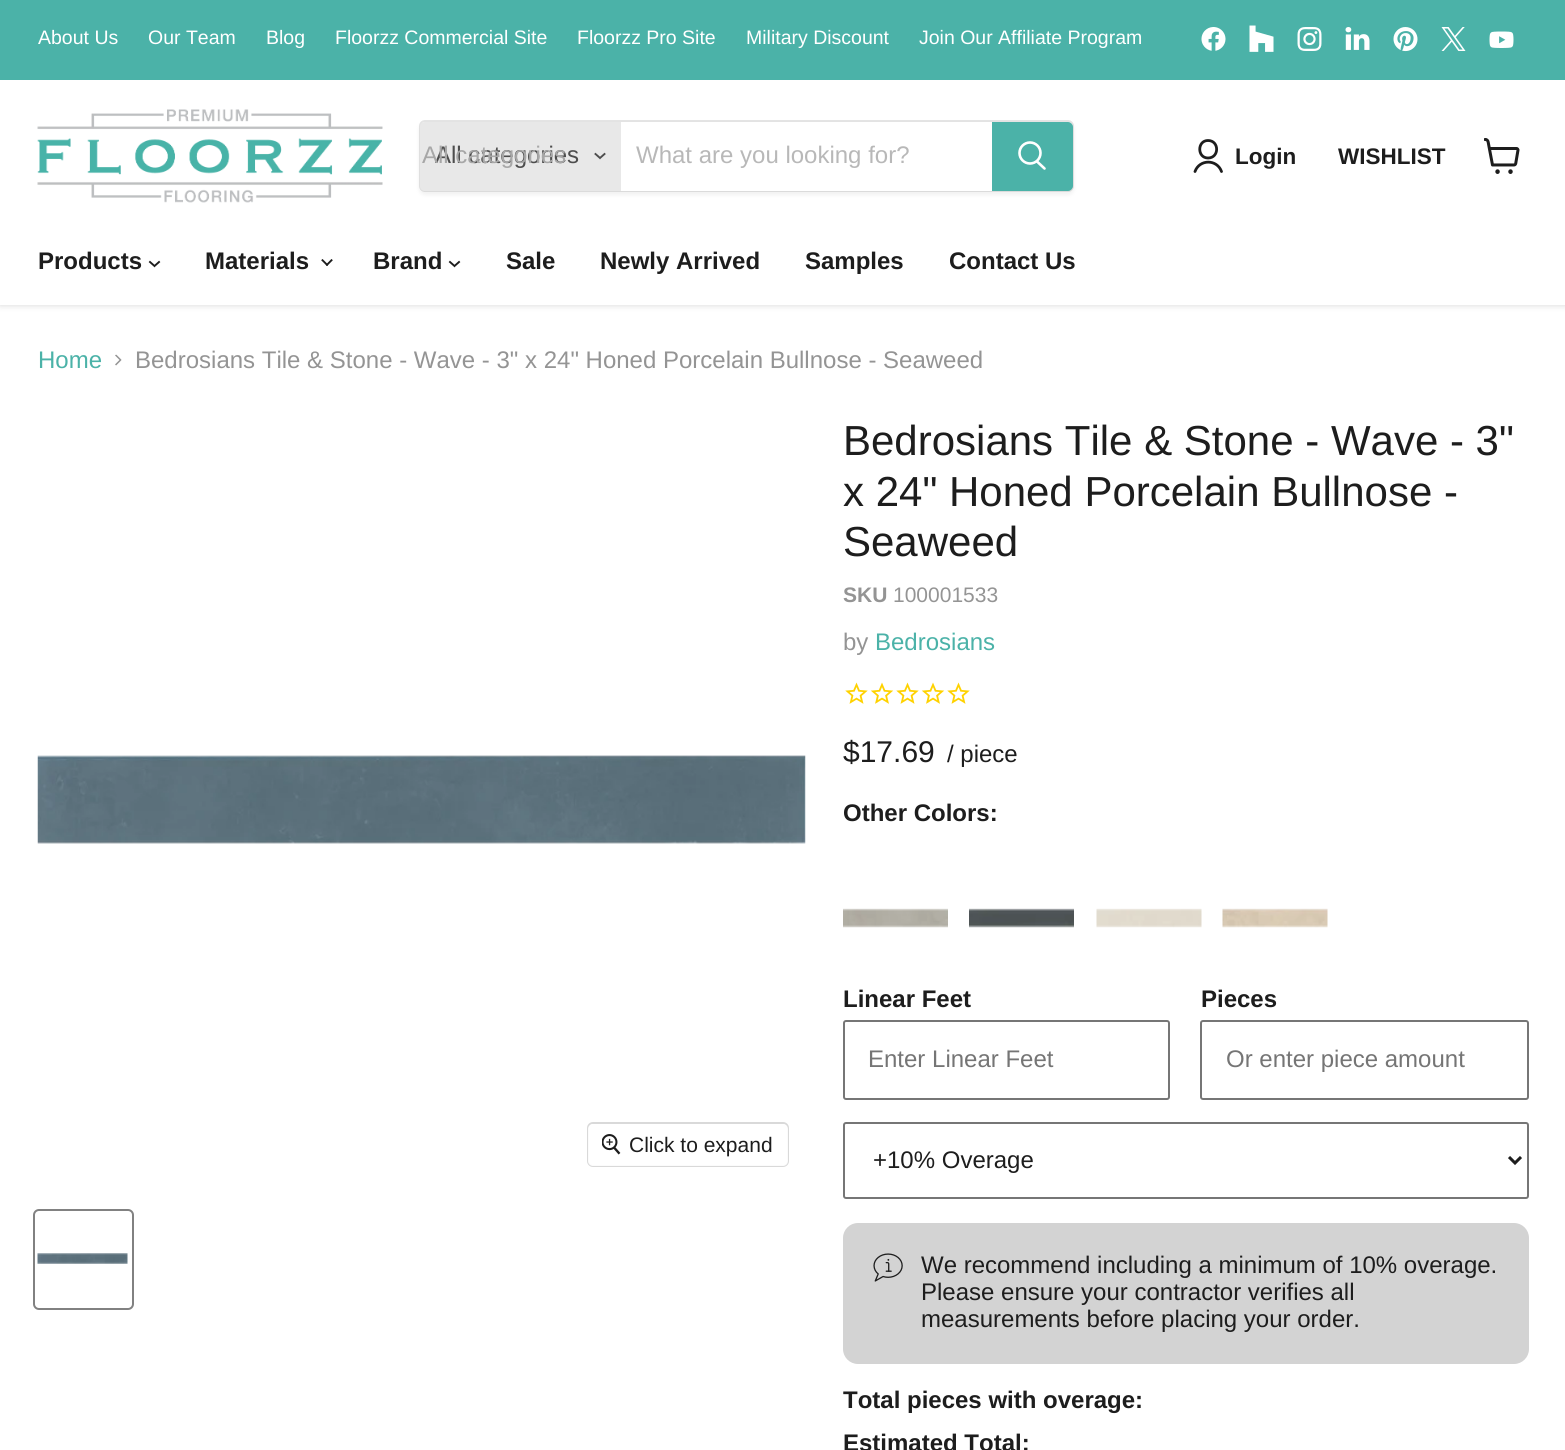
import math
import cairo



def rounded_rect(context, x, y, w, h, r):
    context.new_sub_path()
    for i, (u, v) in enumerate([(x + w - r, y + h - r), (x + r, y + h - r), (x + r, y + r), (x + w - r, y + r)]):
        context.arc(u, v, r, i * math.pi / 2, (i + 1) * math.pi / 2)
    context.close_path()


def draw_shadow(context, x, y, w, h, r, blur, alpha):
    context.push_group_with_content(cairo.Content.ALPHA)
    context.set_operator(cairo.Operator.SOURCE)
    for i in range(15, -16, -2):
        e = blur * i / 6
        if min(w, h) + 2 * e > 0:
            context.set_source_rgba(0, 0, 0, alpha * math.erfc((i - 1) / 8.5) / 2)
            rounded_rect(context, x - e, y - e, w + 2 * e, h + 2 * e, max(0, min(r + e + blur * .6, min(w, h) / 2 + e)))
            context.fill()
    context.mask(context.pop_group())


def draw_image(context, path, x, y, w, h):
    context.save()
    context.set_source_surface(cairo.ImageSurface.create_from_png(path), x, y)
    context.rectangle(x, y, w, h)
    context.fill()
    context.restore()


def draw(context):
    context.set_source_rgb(1, 1, 1)
    context.paint()
    context.set_source_rgb(128 / 255, 128 / 255, 128 / 255)
    draw_shadow(context, 0, 81, 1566, 225, 0, 3, 0.25)
    context.set_source_rgb(75 / 255, 178 / 255, 168 / 255)
    context.rectangle(0, 0, 1565, 80)
    context.fill()
    draw_image(context, "images/1.png", 1201, 27, 25, 24)
    draw_image(context, "images/2.png", 1249, 25, 25, 27)
    draw_image(context, "images/3.png", 1297, 27, 25, 24)
    draw_image(context, "images/4.png", 1345, 27, 25, 23)
    draw_image(context, "images/5.png", 1393, 27, 25, 25)
    draw_image(context, "images/6.png", 1441, 27, 25, 24)
    draw_image(context, "images/7.png", 1489, 31, 25, 17)
    context.set_source_rgb(1, 1, 1)
    context.rectangle(0, 80, 1565, 225)
    context.fill()
    draw_image(context, "images/8.png", 37, 109, 346, 94)
    context.set_source_rgb(128 / 255, 128 / 255, 128 / 255)
    draw_shadow(context, 419, 123, 655, 72, 6, 2, 0.11)
    rounded_rect(context, 420, 121, 653, 70, 5)
    context.set_source_rgba(128 / 255, 128 / 255, 128 / 255, 0.2)
    context.stroke()
    context.set_source_rgb(232 / 255, 232 / 255, 232 / 255)
    context.new_path()
    context.move_to(425, 122)
    context.line_to(621, 122)
    context.line_to(621, 191)
    context.line_to(425, 191)
    context.curve_to(422, 191, 420, 189, 420, 186)
    context.line_to(420, 127)
    context.curve_to(420, 124, 422, 122, 425, 122)
    context.close_path()
    context.fill()
    context.new_path()
    context.move_to(600, 158)
    context.line_to(604.5, 154)
    context.move_to(600, 158)
    context.line_to(595.5, 154)
    context.set_source_rgb(77 / 255, 77 / 255, 77 / 255)
    context.set_line_width(1.9)
    context.set_line_cap(cairo.LineCap.SQUARE)
    context.stroke()
    context.set_source_rgb(1, 1, 1)
    context.rectangle(621, 122, 371, 69)
    context.fill()
    context.set_source_rgb(75 / 255, 178 / 255, 168 / 255)
    context.new_path()
    context.move_to(993, 123)
    context.line_to(1068, 123)
    context.curve_to(1070, 123, 1072, 125, 1072, 127)
    context.line_to(1072, 186)
    context.curve_to(1072, 188, 1070, 190, 1068, 190)
    context.line_to(993, 190)
    context.close_path()
    context.fill_preserve()
    context.set_line_width(2)
    context.set_line_cap(cairo.LineCap.BUTT)
    context.stroke()
    context.new_path()
    context.move_to(1044.5, 168.5)
    context.line_to(1037, 161.5)
    context.set_source_rgb(1, 1, 1)
    context.set_line_width(2.6)
    context.set_line_cap(cairo.LineCap.ROUND)
    context.stroke()
    context.arc(1030, 153, 10.5, 0, 2 * math.pi)
    context.set_line_cap(cairo.LineCap.BUTT)
    context.stroke()
    context.new_path()
    context.move_to(1208, 158)
    context.curve_to(1219.5, 158, 1219.5, 140.5, 1208, 140.5)
    context.curve_to(1197, 140.5, 1197, 158, 1208, 158)
    context.close_path()
    context.move_to(1221.5, 171.5)
    context.curve_to(1217, 159, 1199.5, 159, 1195, 171.5)
    context.set_source_rgb(29 / 255, 29 / 255, 29 / 255)
    context.set_line_width(2.8)
    context.set_line_cap(cairo.LineCap.ROUND)
    context.set_line_join(cairo.LineJoin.ROUND)
    context.stroke()
    draw_image(context, "images/9.png", 1484, 138, 36, 36)
    context.new_path()
    context.move_to(154.5, 266)
    context.line_to(159, 262)
    context.move_to(154.5, 266)
    context.line_to(150, 262)
    context.set_line_width(1.9)
    context.set_line_cap(cairo.LineCap.SQUARE)
    context.set_line_join(cairo.LineJoin.MITER)
    context.stroke()
    draw_image(context, "images/10.png", 321, 259, 12, 7)
    context.new_path()
    context.move_to(454.5, 266)
    context.line_to(459, 262)
    context.move_to(454.5, 266)
    context.line_to(450, 262)
    context.stroke()
    draw_image(context, "images/11.png", 115, 354, 7, 12)
    draw_image(context, "images/12.png", 37, 755, 769, 89)
    rounded_rect(context, 588, 1123, 200, 43, 5)
    context.set_source_rgb(217 / 255, 217 / 255, 217 / 255)
    context.set_line_width(2)
    context.set_line_cap(cairo.LineCap.BUTT)
    context.stroke()
    context.set_source_rgba(1, 1, 1, 0.9)
    rounded_rect(context, 588, 1124, 200, 42, 5)
    context.fill()
    draw_image(context, "images/13.png", 602, 1134, 19, 21)
    rounded_rect(context, 34, 1210, 99, 99, 5)
    context.set_source_rgb(129 / 255, 129 / 255, 129 / 255)
    context.stroke()
    draw_image(context, "images/14.png", 37, 1253, 91, 11)
    draw_image(context, "images/15.png", 845, 682, 23, 22)
    draw_image(context, "images/16.png", 870, 682, 24, 22)
    draw_image(context, "images/15.png", 896, 682, 23, 22)
    draw_image(context, "images/16.png", 921, 682, 24, 22)
    draw_image(context, "images/15.png", 947, 682, 23, 22)
    draw_image(context, "images/17.png", 843, 908, 105, 20)
    draw_image(context, "images/18.png", 969, 908, 105, 20)
    draw_image(context, "images/19.png", 1096, 908, 106, 20)
    draw_image(context, "images/20.png", 1222, 908, 106, 20)
    rounded_rect(context, 844, 1021, 325, 78, 2)
    context.set_source_rgb(118 / 255, 118 / 255, 118 / 255)
    context.stroke()
    rounded_rect(context, 1201, 1021, 327, 78, 2)
    context.stroke()
    rounded_rect(context, 844, 1123, 684, 75, 2)
    context.stroke()
    context.new_path()
    context.move_to(1509, 1157)
    context.line_to(1515, 1163)
    context.line_to(1521, 1157)
    context.set_source_rgb(29 / 255, 29 / 255, 29 / 255)
    context.set_line_width(3)
    context.stroke()
    context.set_source_rgb(211 / 255, 211 / 255, 211 / 255)
    rounded_rect(context, 843, 1223, 686, 141, 15)
    context.fill()
    draw_image(context, "images/21.png", 873, 1253, 30, 29)
    context.select_font_face("Liberation Sans")
    context.set_font_size(19.5)
    context.set_source_rgb(1, 1, 1)
    context.move_to(38, 44)
    context.show_text("About Us")
    context.move_to(148, 44)
    context.show_text("Our Team")
    context.move_to(266, 44)
    context.show_text("Blog")
    context.move_to(335, 44)
    context.show_text("Floorzz Commercial Site")
    context.move_to(577, 44)
    context.show_text("Floorzz Pro Site")
    context.move_to(746, 44)
    context.show_text("Military Discount")
    context.move_to(919, 44)
    context.show_text("Join Our Affiliate Program")
    context.set_font_size(24)
    context.set_source_rgb(77 / 255, 77 / 255, 77 / 255)
    context.move_to(435, 163)
    context.show_text("All categories")
    context.set_source_rgb(167 / 255, 167 / 255, 167 / 255)
    context.move_to(422, 163)
    context.show_text("All categories")
    context.set_source_rgb(184 / 255, 184 / 255, 184 / 255)
    context.move_to(636, 163)
    context.show_text("What are you looking for?")
    context.select_font_face("Liberation Sans", cairo.FontSlant.NORMAL, cairo.FontWeight.BOLD)
    context.set_font_size(22.5)
    context.set_source_rgb(29 / 255, 29 / 255, 29 / 255)
    context.move_to(1235, 164)
    context.show_text("Login")
    context.move_to(1338, 164)
    context.show_text("WISHLIST")
    context.set_font_size(24)
    context.move_to(38, 269)
    context.show_text("Products")
    context.move_to(205, 269)
    context.show_text("Materials")
    context.move_to(373, 269)
    context.show_text("Brand")
    context.move_to(506, 269)
    context.show_text("Sale")
    context.move_to(600, 269)
    context.show_text("Newly Arrived")
    context.move_to(805, 269)
    context.show_text("Samples")
    context.move_to(949, 269)
    context.show_text("Contact Us")
    context.select_font_face("Liberation Sans")
    context.set_source_rgb(75 / 255, 178 / 255, 168 / 255)
    context.move_to(38, 368)
    context.show_text("Home")
    context.set_source_rgb(148 / 255, 148 / 255, 148 / 255)
    context.move_to(135, 368)
    context.show_text("Bedrosians Tile & Stone - Wave - 3\" x 24\" Honed Porcelain Bullnose - Seaweed")
    context.set_font_size(21)
    context.set_source_rgb(29 / 255, 29 / 255, 29 / 255)
    context.move_to(629, 1152)
    context.show_text("Click to expand")
    context.set_font_size(42)
    context.move_to(843, 455)
    context.show_text("Bedrosians Tile & Stone - Wave - 3\"")
    context.move_to(843, 506)
    context.show_text("x 24\" Honed Porcelain Bullnose -")
    context.move_to(843, 556)
    context.show_text("Seaweed")
    context.select_font_face("Liberation Sans", cairo.FontSlant.NORMAL, cairo.FontWeight.BOLD)
    context.set_font_size(21)
    context.set_source_rgb(148 / 255, 148 / 255, 148 / 255)
    context.move_to(843, 602)
    context.show_text("SKU")
    context.select_font_face("Liberation Sans")
    context.move_to(893, 602)
    context.show_text("100001533")
    context.set_font_size(24)
    context.move_to(843, 650)
    context.show_text("by")
    context.set_source_rgb(75 / 255, 178 / 255, 168 / 255)
    context.move_to(875, 650)
    context.show_text("Bedrosians")
    context.set_font_size(30)
    context.set_source_rgb(29 / 255, 29 / 255, 29 / 255)
    context.move_to(843, 762)
    context.show_text("$17.69")
    context.set_font_size(24)
    context.move_to(947, 762)
    context.show_text("/ piece")
    context.select_font_face("Liberation Sans", cairo.FontSlant.NORMAL, cairo.FontWeight.BOLD)
    context.move_to(843, 821)
    context.show_text("Other Colors:")
    context.move_to(843, 1007)
    context.show_text("Linear Feet")
    context.select_font_face("Liberation Sans")
    context.set_source_rgb(117 / 255, 117 / 255, 117 / 255)
    context.move_to(868, 1067)
    context.show_text("Enter Linear Feet")
    context.select_font_face("Liberation Sans", cairo.FontSlant.NORMAL, cairo.FontWeight.BOLD)
    context.set_source_rgb(29 / 255, 29 / 255, 29 / 255)
    context.move_to(1201, 1007)
    context.show_text("Pieces")
    context.select_font_face("Liberation Sans")
    context.set_source_rgb(117 / 255, 117 / 255, 117 / 255)
    context.move_to(1226, 1067)
    context.show_text("Or enter piece amount")
    context.set_source_rgb(29 / 255, 29 / 255, 29 / 255)
    context.move_to(873, 1168)
    context.show_text("+10% Overage")
    context.move_to(921, 1273)
    context.show_text("We recommend including a minimum of 10% overage.")
    context.move_to(921, 1300)
    context.show_text("Please ensure your contractor verifies all")
    context.move_to(921, 1327)
    context.show_text("measurements before placing your order.")
    context.select_font_face("Liberation Sans", cairo.FontSlant.NORMAL, cairo.FontWeight.BOLD)
    context.move_to(843, 1408)
    context.show_text("Total pieces with overage:")
    context.move_to(843, 1451)
    context.show_text("Estimated Total:")


surface = cairo.ImageSurface(cairo.Format.RGB24, 1565, 1450)
context = cairo.Context(surface)
options = cairo.FontOptions()
options.set_hint_metrics(cairo.HintMetrics.OFF)
options.set_hint_style(cairo.HintStyle.NONE)
context.set_font_options(options)
context.set_miter_limit(4)
draw(context)
surface.write_to_png("out.png")
